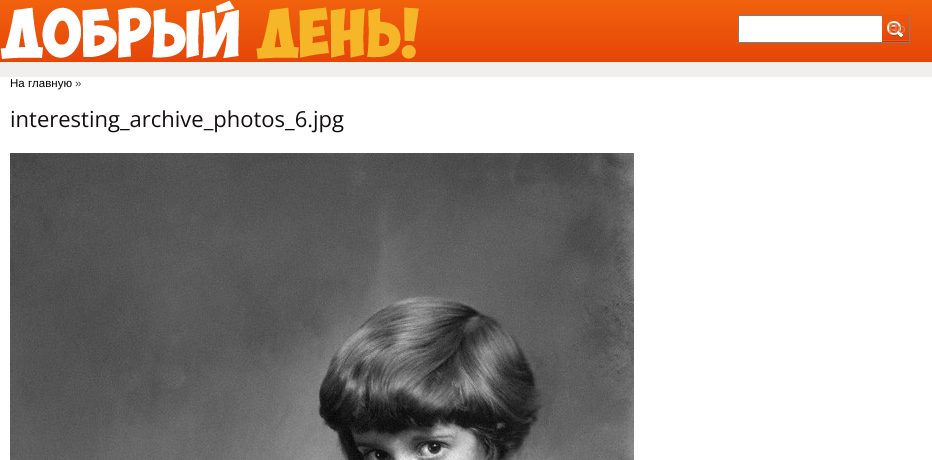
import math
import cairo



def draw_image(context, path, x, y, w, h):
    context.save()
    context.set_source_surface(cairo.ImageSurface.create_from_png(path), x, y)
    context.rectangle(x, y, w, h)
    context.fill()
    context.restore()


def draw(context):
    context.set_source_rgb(241 / 255, 239 / 255, 238 / 255)
    context.paint()
    gradient = cairo.LinearGradient(466, 0, 466, 62)
    gradient.add_color_stop_rgba(0, 241 / 255, 98 / 255, 13 / 255, 1)
    gradient.add_color_stop_rgba(1, 230 / 255, 69 / 255, 8 / 255, 1)
    context.set_source(gradient)
    context.rectangle(0, 0, 932, 62)
    context.fill()
    draw_image(context, "images/1.png", 0, 0, 419, 59)
    context.set_source_rgb(1, 1, 1)
    context.rectangle(739, 16, 143, 26)
    context.fill()
    context.rectangle(738.5, 15.5, 171, 27)
    context.set_source_rgb(127 / 255, 127 / 255, 127 / 255)
    context.set_line_width(1)
    context.stroke()
    context.set_source_rgb(236 / 255, 85 / 255, 11 / 255)
    context.rectangle(882, 15, 27, 6)
    context.fill()
    draw_image(context, "images/2.png", 882, 21, 27, 21)
    context.set_source_rgb(1, 1, 1)
    context.rectangle(0, 77, 932, 383)
    context.fill()
    draw_image(context, "images/3.png", 10, 153, 624, 307)
    context.select_font_face("DejaVu Sans")
    context.set_font_size(13)
    context.set_source_rgb(234 / 255, 125 / 255, 77 / 255)
    context.move_to(888, 33)
    context.show_text("По")
    context.select_font_face("Liberation Sans")
    context.set_font_size(11.5)
    context.set_source_rgb(0, 0, 0)
    context.move_to(10, 87)
    context.show_text("На главную")
    context.set_source_rgb(64 / 255, 64 / 255, 64 / 255)
    context.move_to(75, 87)
    context.show_text("»")
    context.select_font_face("Open Sans")
    context.set_font_size(22)
    context.set_source_rgb(20 / 255, 15 / 255, 15 / 255)
    context.move_to(10, 127)
    context.show_text("interesting_archive_photos_6.jpg")


surface = cairo.ImageSurface(cairo.Format.RGB24, 932, 460)
context = cairo.Context(surface)
options = cairo.FontOptions()
options.set_hint_metrics(cairo.HintMetrics.OFF)
options.set_hint_style(cairo.HintStyle.NONE)
context.set_font_options(options)
context.set_miter_limit(4)
draw(context)
surface.write_to_png("out.png")
